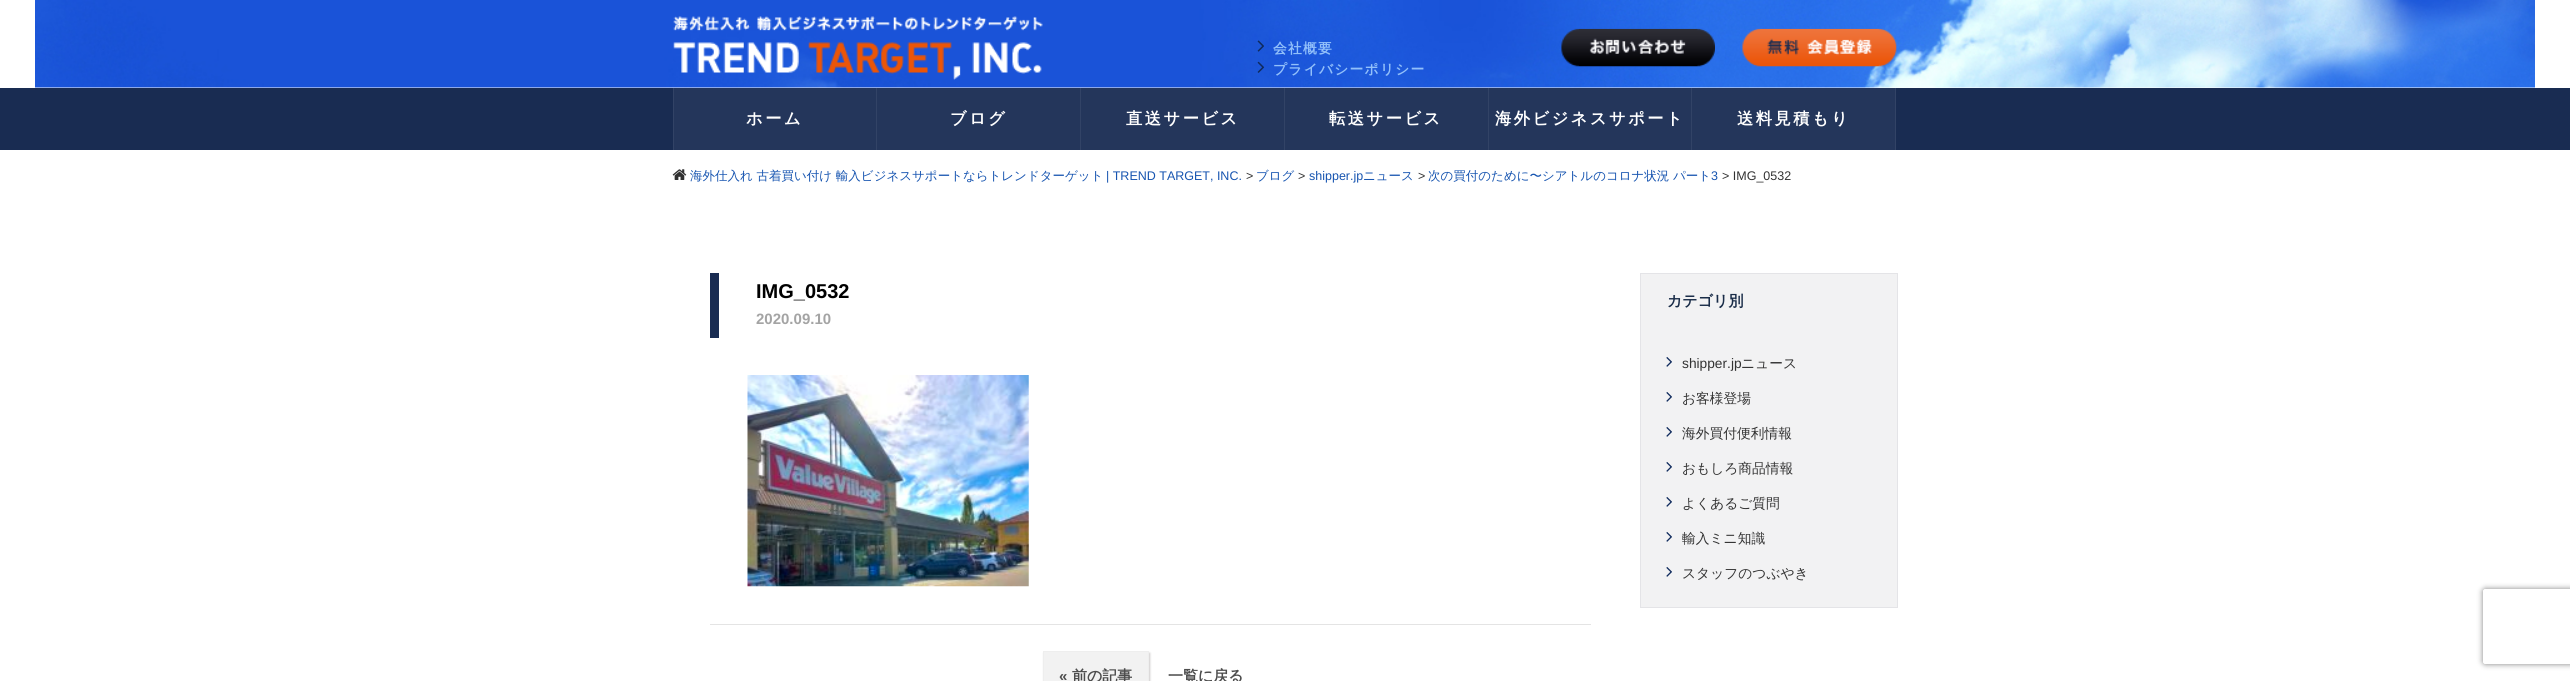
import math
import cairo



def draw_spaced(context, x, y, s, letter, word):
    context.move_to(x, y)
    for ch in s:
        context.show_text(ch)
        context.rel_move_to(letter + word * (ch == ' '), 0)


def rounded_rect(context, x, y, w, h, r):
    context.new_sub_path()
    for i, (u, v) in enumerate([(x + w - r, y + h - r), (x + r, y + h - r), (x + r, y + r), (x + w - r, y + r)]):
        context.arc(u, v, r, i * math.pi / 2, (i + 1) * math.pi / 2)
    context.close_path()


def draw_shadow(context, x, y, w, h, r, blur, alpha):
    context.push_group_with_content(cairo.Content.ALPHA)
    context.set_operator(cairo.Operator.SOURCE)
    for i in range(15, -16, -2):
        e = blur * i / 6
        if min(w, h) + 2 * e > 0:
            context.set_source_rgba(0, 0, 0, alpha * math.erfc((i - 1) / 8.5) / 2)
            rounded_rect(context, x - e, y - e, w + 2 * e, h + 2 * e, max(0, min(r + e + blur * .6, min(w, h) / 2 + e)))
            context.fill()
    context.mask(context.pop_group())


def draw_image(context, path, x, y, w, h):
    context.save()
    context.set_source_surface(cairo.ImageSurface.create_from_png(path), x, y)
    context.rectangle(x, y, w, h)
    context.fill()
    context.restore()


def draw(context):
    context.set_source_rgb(1, 1, 1)
    context.paint()
    draw_image(context, "images/1.png", 35, 0, 2500, 88)
    draw_image(context, "images/2.png", 673, 16, 370, 64)
    draw_image(context, "images/3.png", 1257, 40, 7, 12)
    draw_image(context, "images/4.png", 1257, 61, 8, 12)
    draw_image(context, "images/5.png", 1561, 28, 154, 39)
    draw_image(context, "images/6.png", 1742, 28, 155, 39)
    context.set_source_rgb(25 / 255, 44 / 255, 82 / 255)
    context.rectangle(0, 88, 2570, 62)
    context.fill()
    context.set_source_rgb(50 / 255, 67 / 255, 102 / 255)
    context.rectangle(673, 88, 1, 62)
    context.fill()
    context.set_source_rgb(36 / 255, 54 / 255, 91 / 255)
    context.rectangle(674, 88, 406, 62)
    context.fill()
    context.set_source_rgb(50 / 255, 67 / 255, 102 / 255)
    context.rectangle(876, 88, 1, 62)
    context.fill()
    context.rectangle(1080, 88, 1, 62)
    context.fill()
    context.set_source_rgb(36 / 255, 54 / 255, 91 / 255)
    context.rectangle(1081, 88, 203, 62)
    context.fill()
    context.set_source_rgb(50 / 255, 67 / 255, 102 / 255)
    context.rectangle(1284, 88, 1, 62)
    context.fill()
    context.set_source_rgb(36 / 255, 54 / 255, 91 / 255)
    context.rectangle(1285, 88, 203, 62)
    context.fill()
    context.set_source_rgb(50 / 255, 67 / 255, 102 / 255)
    context.rectangle(1488, 88, 1, 62)
    context.fill()
    context.set_source_rgb(36 / 255, 54 / 255, 91 / 255)
    context.rectangle(1489, 88, 406, 62)
    context.fill()
    context.set_source_rgb(50 / 255, 67 / 255, 102 / 255)
    context.rectangle(1691, 88, 1, 62)
    context.fill()
    context.rectangle(1895, 88, 1, 62)
    context.fill()
    draw_image(context, "images/7.png", 672, 169, 15, 11)
    context.set_source_rgb(25 / 255, 44 / 255, 82 / 255)
    context.rectangle(710, 273, 9, 65)
    context.fill()
    draw_image(context, "images/8.png", 747, 375, 282, 212)
    context.set_source_rgb(228 / 255, 228 / 255, 228 / 255)
    context.rectangle(710, 624, 881, 1)
    context.fill()
    context.set_source_rgb(206 / 255, 203 / 255, 203 / 255)
    draw_shadow(context, 1044, 653, 106, 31, 0, 1, 1)
    context.set_source_rgb(242 / 255, 242 / 255, 242 / 255)
    context.rectangle(1043.5, 651.5, 105, 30)
    context.fill_preserve()
    context.set_source_rgb(238 / 255, 238 / 255, 238 / 255)
    context.set_line_width(1)
    context.stroke()
    context.set_source_rgb(242 / 255, 242 / 255, 243 / 255)
    context.rectangle(1640.5, 273.5, 257, 334)
    context.fill_preserve()
    context.set_source_rgb(228 / 255, 228 / 255, 231 / 255)
    context.stroke()
    draw_image(context, "images/9.png", 1666, 357, 6, 10)
    draw_image(context, "images/9.png", 1666, 392, 6, 10)
    draw_image(context, "images/9.png", 1666, 427, 6, 10)
    draw_image(context, "images/9.png", 1666, 462, 6, 10)
    draw_image(context, "images/9.png", 1666, 497, 6, 10)
    draw_image(context, "images/9.png", 1666, 532, 6, 10)
    draw_image(context, "images/9.png", 1666, 567, 6, 10)
    context.save()
    context.set_fill_rule(cairo.FillRule.EVEN_ODD)
    context.new_path()
    context.move_to(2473, 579)
    context.line_to(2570, 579)
    context.line_to(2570, 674)
    context.line_to(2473, 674)
    context.close_path()
    context.move_to(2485.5, 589)
    context.line_to(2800.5, 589)
    context.curve_to(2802, 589, 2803, 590, 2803, 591.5)
    context.line_to(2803, 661.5)
    context.curve_to(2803, 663, 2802, 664, 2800.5, 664)
    context.line_to(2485.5, 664)
    context.curve_to(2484, 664, 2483, 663, 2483, 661.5)
    context.line_to(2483, 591.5)
    context.curve_to(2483, 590, 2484, 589, 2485.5, 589)
    context.close_path()
    context.clip()
    context.set_source_rgb(128 / 255, 128 / 255, 128 / 255)
    draw_shadow(context, 2483, 589, 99, 75, 2.5, 3, 1)
    context.restore()
    context.select_font_face("WenQuanYi Zen Hei", cairo.FontSlant.NORMAL, cairo.FontWeight.BOLD)
    context.set_font_size(13.75)
    context.set_source_rgb(146 / 255, 192 / 255, 250 / 255)
    draw_spaced(context, 1273, 53, "会社概要", 1.25, 0)
    draw_spaced(context, 1273, 74, "プライバシーポリシー", 1.25, 0)
    context.set_font_size(16.25)
    context.set_source_rgb(1, 1, 1)
    draw_spaced(context, 746, 124, "ホーム", 2.5, 0)
    draw_spaced(context, 950, 124, "ブログ", 2.5, 0)
    draw_spaced(context, 1126, 124, "直送サービス", 2.5, 0)
    draw_spaced(context, 1329, 124, "転送サービス", 2.5, 0)
    draw_spaced(context, 1495, 124, "海外ビジネスサポート", 2.5, 0)
    draw_spaced(context, 1737, 124, "送料見積もり", 2.5, 0)
    context.select_font_face("WenQuanYi Zen Hei Medium")
    context.set_font_size(12.5)
    context.set_source_rgb(22 / 255, 84 / 255, 176 / 255)
    context.move_to(690, 180)
    context.show_text("海外仕入れ 古着買い付け 輸入ビジネスサポートならトレンドターゲット")
    context.select_font_face("Liberation Sans")
    context.move_to(1106, 180)
    context.show_text("| TREND TARGET, INC.")
    context.set_source_rgb(51 / 255, 51 / 255, 51 / 255)
    context.move_to(1246, 180)
    context.show_text(">")
    context.select_font_face("WenQuanYi Zen Hei Medium")
    context.set_source_rgb(22 / 255, 84 / 255, 176 / 255)
    context.move_to(1256, 180)
    context.show_text("ブログ")
    context.select_font_face("Liberation Sans")
    context.set_source_rgb(51 / 255, 51 / 255, 51 / 255)
    context.move_to(1298, 180)
    context.show_text(">")
    context.set_source_rgb(22 / 255, 84 / 255, 176 / 255)
    context.move_to(1309, 180)
    context.show_text("shipper.jp")
    context.select_font_face("WenQuanYi Zen Hei Medium")
    context.move_to(1363, 180)
    context.show_text("ニュース")
    context.select_font_face("Liberation Sans")
    context.set_source_rgb(51 / 255, 51 / 255, 51 / 255)
    context.move_to(1418, 180)
    context.show_text(">")
    context.select_font_face("WenQuanYi Zen Hei Medium")
    context.set_source_rgb(22 / 255, 84 / 255, 176 / 255)
    context.move_to(1428, 180)
    context.show_text("次の買付のために〜シアトルのコロナ状況 パート")
    context.select_font_face("Liberation Sans")
    context.move_to(1711, 180)
    context.show_text("3")
    context.set_source_rgb(51 / 255, 51 / 255, 51 / 255)
    context.move_to(1722, 180)
    context.show_text("> IMG_0532")
    context.select_font_face("Liberation Sans", cairo.FontSlant.NORMAL, cairo.FontWeight.BOLD)
    context.set_font_size(20)
    context.set_source_rgb(0, 0, 0)
    context.move_to(756, 298)
    context.show_text("IMG_0532")
    context.set_font_size(15)
    context.set_source_rgb(164 / 255, 164 / 255, 164 / 255)
    context.move_to(756, 324)
    context.show_text("2020.09.10")
    context.set_source_rgb(77 / 255, 77 / 255, 77 / 255)
    context.move_to(1059, 681)
    context.show_text("«")
    context.select_font_face("WenQuanYi Zen Hei", cairo.FontSlant.NORMAL, cairo.FontWeight.BOLD)
    context.move_to(1072, 681)
    context.show_text("前の記事")
    context.move_to(1168, 681)
    context.show_text("一覧に戻る")
    context.set_source_rgb(25 / 255, 44 / 255, 72 / 255)
    context.move_to(1667, 306)
    context.show_text("カテゴリ別")
    context.select_font_face("Liberation Sans")
    context.set_font_size(13.75)
    context.set_source_rgb(51 / 255, 51 / 255, 51 / 255)
    context.move_to(1682, 368)
    context.show_text("shipper.jp")
    context.select_font_face("WenQuanYi Zen Hei Medium")
    context.move_to(1741, 368)
    context.show_text("ニュース")
    context.move_to(1682, 403)
    context.show_text("お客様登場")
    context.move_to(1682, 438)
    context.show_text("海外買付便利情報")
    context.move_to(1682, 473)
    context.show_text("おもしろ商品情報")
    context.move_to(1682, 508)
    context.show_text("よくあるご質問")
    context.move_to(1682, 543)
    context.show_text("輸入ミニ知識")
    context.move_to(1682, 578)
    context.show_text("スタッフのつぶやき")


surface = cairo.ImageSurface(cairo.Format.RGB24, 2570, 681)
context = cairo.Context(surface)
options = cairo.FontOptions()
options.set_hint_metrics(cairo.HintMetrics.OFF)
options.set_hint_style(cairo.HintStyle.NONE)
context.set_font_options(options)
context.set_miter_limit(4)
draw(context)
surface.write_to_png("out.png")
